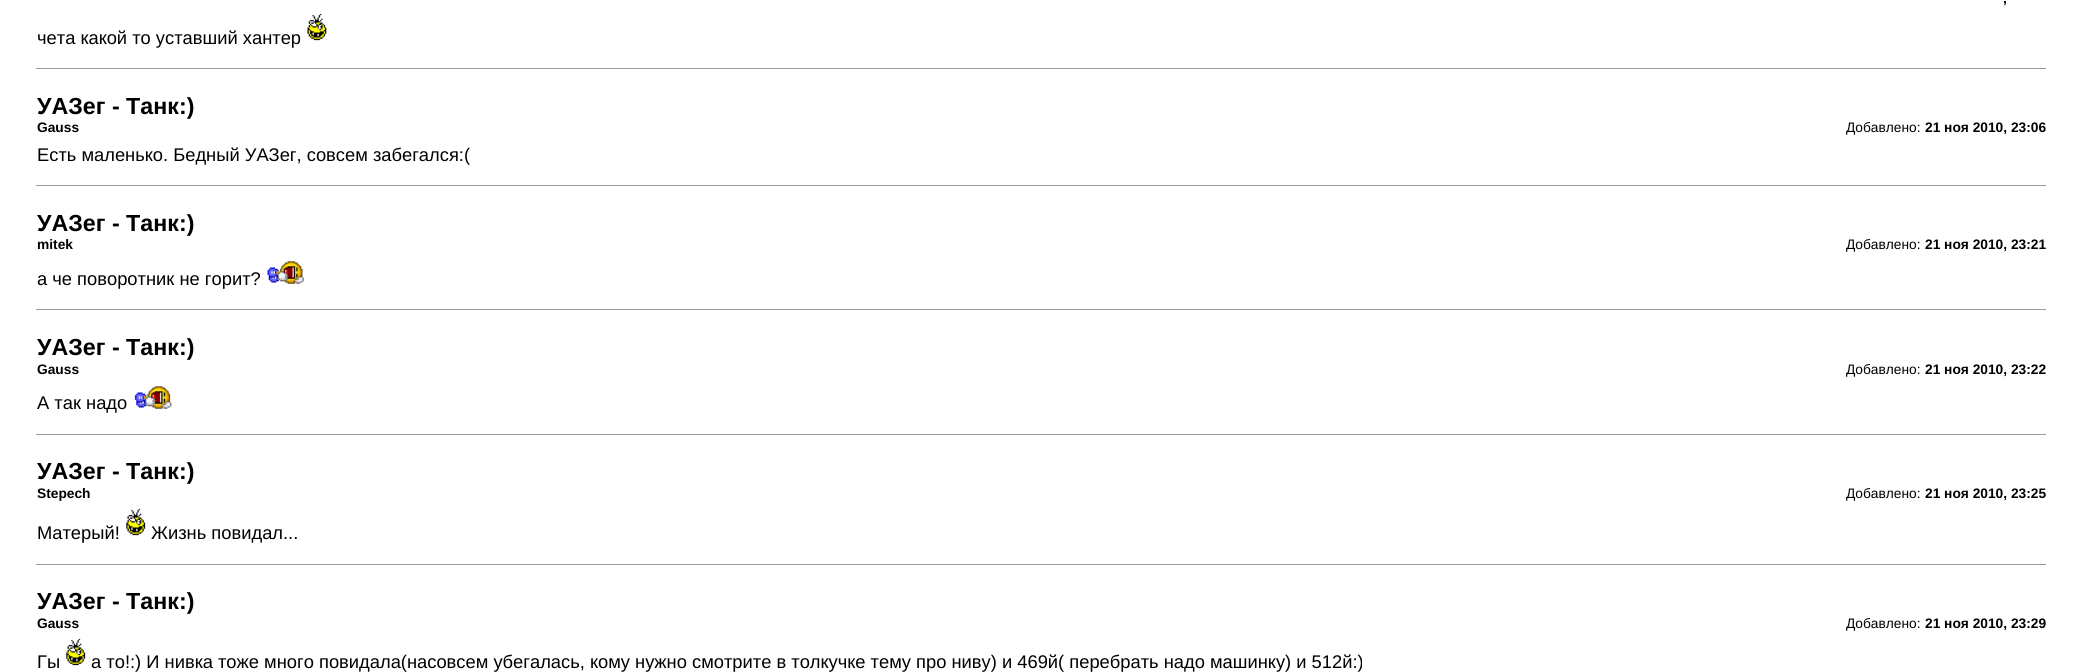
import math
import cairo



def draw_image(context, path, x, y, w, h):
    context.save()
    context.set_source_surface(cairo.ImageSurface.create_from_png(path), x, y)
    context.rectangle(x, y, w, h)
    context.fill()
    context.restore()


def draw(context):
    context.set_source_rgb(1, 1, 1)
    context.paint()
    draw_image(context, "images/1.png", 307, 13, 20, 28)
    context.set_source_rgb(153 / 255, 153 / 255, 153 / 255)
    context.rectangle(36, 68, 2010, 1)
    context.fill()
    context.rectangle(36, 185, 2010, 1)
    context.fill()
    draw_image(context, "images/2.png", 267, 261, 37, 23)
    context.rectangle(36, 309, 2010, 1)
    context.fill()
    draw_image(context, "images/3.png", 134, 386, 38, 23)
    context.rectangle(36, 434, 2010, 1)
    context.fill()
    draw_image(context, "images/4.png", 126, 508, 20, 28)
    context.rectangle(36, 564, 2010, 1)
    context.fill()
    draw_image(context, "images/4.png", 66, 638, 20, 28)
    context.select_font_face("Liberation Sans", cairo.FontSlant.NORMAL, cairo.FontWeight.BOLD)
    context.set_font_size(13.75)
    context.set_source_rgb(0, 0, 0)
    context.move_to(2003, 3)
    context.show_text(",")
    context.select_font_face("Liberation Sans")
    context.set_font_size(18.33)
    context.move_to(37, 44)
    context.show_text("чета какой то уставший хантер")
    context.select_font_face("Liberation Sans", cairo.FontSlant.NORMAL, cairo.FontWeight.BOLD)
    context.set_font_size(23.25)
    context.move_to(37, 114)
    context.show_text("УАЗег - Танк:)")
    context.set_font_size(13.75)
    context.move_to(37, 132)
    context.show_text("Gauss")
    context.select_font_face("Liberation Sans")
    context.move_to(1846, 132)
    context.show_text("Добавлено:")
    context.select_font_face("Liberation Sans", cairo.FontSlant.NORMAL, cairo.FontWeight.BOLD)
    context.move_to(1925, 132)
    context.show_text("21 ноя 2010, 23:06")
    context.select_font_face("Liberation Sans")
    context.set_font_size(18.33)
    context.move_to(37, 161)
    context.show_text("Есть маленько. Бедный УАЗег, совсем забегался:(")
    context.select_font_face("Liberation Sans", cairo.FontSlant.NORMAL, cairo.FontWeight.BOLD)
    context.set_font_size(23.25)
    context.move_to(37, 231)
    context.show_text("УАЗег - Танк:)")
    context.set_font_size(13.75)
    context.move_to(37, 249)
    context.show_text("mitek")
    context.select_font_face("Liberation Sans")
    context.move_to(1846, 249)
    context.show_text("Добавлено:")
    context.select_font_face("Liberation Sans", cairo.FontSlant.NORMAL, cairo.FontWeight.BOLD)
    context.move_to(1925, 249)
    context.show_text("21 ноя 2010, 23:21")
    context.select_font_face("Liberation Sans")
    context.set_font_size(18.33)
    context.move_to(37, 285)
    context.show_text("а че поворотник не горит?")
    context.select_font_face("Liberation Sans", cairo.FontSlant.NORMAL, cairo.FontWeight.BOLD)
    context.set_font_size(23.25)
    context.move_to(37, 355)
    context.show_text("УАЗег - Танк:)")
    context.set_font_size(13.75)
    context.move_to(37, 374)
    context.show_text("Gauss")
    context.select_font_face("Liberation Sans")
    context.move_to(1846, 374)
    context.show_text("Добавлено:")
    context.select_font_face("Liberation Sans", cairo.FontSlant.NORMAL, cairo.FontWeight.BOLD)
    context.move_to(1925, 374)
    context.show_text("21 ноя 2010, 23:22")
    context.select_font_face("Liberation Sans")
    context.set_font_size(18.33)
    context.move_to(37, 409)
    context.show_text("А так надо")
    context.select_font_face("Liberation Sans", cairo.FontSlant.NORMAL, cairo.FontWeight.BOLD)
    context.set_font_size(23.25)
    context.move_to(37, 479)
    context.show_text("УАЗег - Танк:)")
    context.set_font_size(13.75)
    context.move_to(37, 498)
    context.show_text("Stepech")
    context.select_font_face("Liberation Sans")
    context.move_to(1846, 498)
    context.show_text("Добавлено:")
    context.select_font_face("Liberation Sans", cairo.FontSlant.NORMAL, cairo.FontWeight.BOLD)
    context.move_to(1925, 498)
    context.show_text("21 ноя 2010, 23:25")
    context.select_font_face("Liberation Sans")
    context.set_font_size(18.33)
    context.move_to(37, 539)
    context.show_text("Матерый!")
    context.move_to(151, 539)
    context.show_text("Жизнь повидал...")
    context.select_font_face("Liberation Sans", cairo.FontSlant.NORMAL, cairo.FontWeight.BOLD)
    context.set_font_size(23.25)
    context.move_to(37, 609)
    context.show_text("УАЗег - Танк:)")
    context.set_font_size(13.75)
    context.move_to(37, 628)
    context.show_text("Gauss")
    context.select_font_face("Liberation Sans")
    context.move_to(1846, 628)
    context.show_text("Добавлено:")
    context.select_font_face("Liberation Sans", cairo.FontSlant.NORMAL, cairo.FontWeight.BOLD)
    context.move_to(1925, 628)
    context.show_text("21 ноя 2010, 23:29")
    context.select_font_face("Liberation Sans")
    context.set_font_size(18.33)
    context.move_to(37, 668)
    context.show_text("Гы")
    context.move_to(91, 668)
    context.show_text("а то!:) И нивка тоже много повидала(насовсем убегалась, кому нужно смотрите в толкучке тему про ниву) и 469й( перебрать надо машинку) и 512й:)")


surface = cairo.ImageSurface(cairo.Format.RGB24, 2082, 672)
context = cairo.Context(surface)
options = cairo.FontOptions()
options.set_hint_metrics(cairo.HintMetrics.OFF)
options.set_hint_style(cairo.HintStyle.NONE)
context.set_font_options(options)
context.set_miter_limit(4)
draw(context)
surface.write_to_png("out.png")
